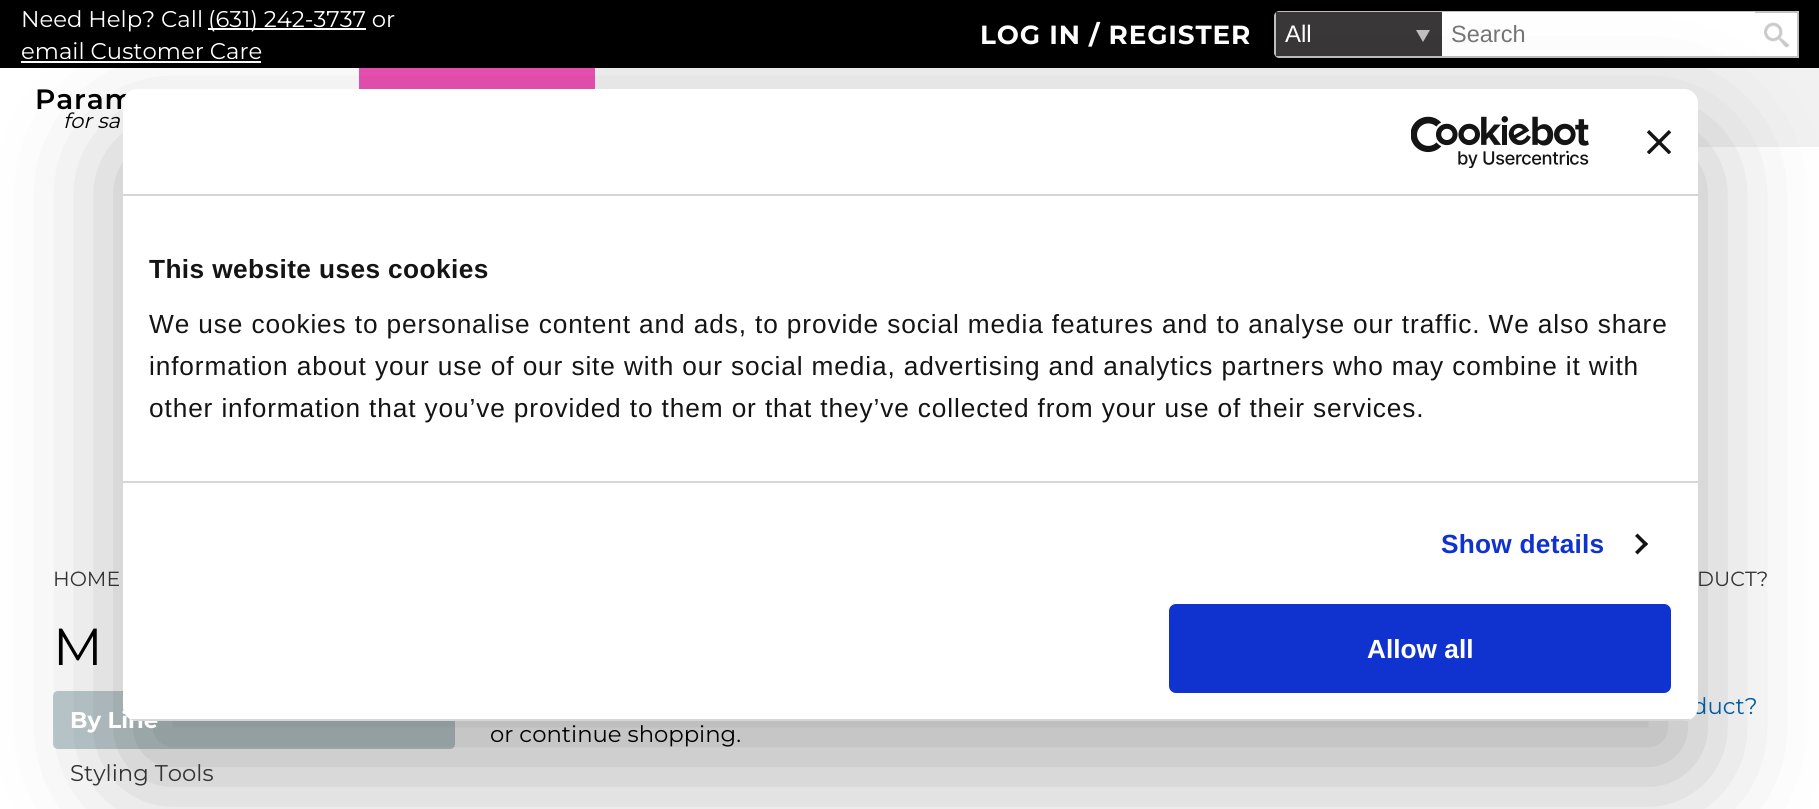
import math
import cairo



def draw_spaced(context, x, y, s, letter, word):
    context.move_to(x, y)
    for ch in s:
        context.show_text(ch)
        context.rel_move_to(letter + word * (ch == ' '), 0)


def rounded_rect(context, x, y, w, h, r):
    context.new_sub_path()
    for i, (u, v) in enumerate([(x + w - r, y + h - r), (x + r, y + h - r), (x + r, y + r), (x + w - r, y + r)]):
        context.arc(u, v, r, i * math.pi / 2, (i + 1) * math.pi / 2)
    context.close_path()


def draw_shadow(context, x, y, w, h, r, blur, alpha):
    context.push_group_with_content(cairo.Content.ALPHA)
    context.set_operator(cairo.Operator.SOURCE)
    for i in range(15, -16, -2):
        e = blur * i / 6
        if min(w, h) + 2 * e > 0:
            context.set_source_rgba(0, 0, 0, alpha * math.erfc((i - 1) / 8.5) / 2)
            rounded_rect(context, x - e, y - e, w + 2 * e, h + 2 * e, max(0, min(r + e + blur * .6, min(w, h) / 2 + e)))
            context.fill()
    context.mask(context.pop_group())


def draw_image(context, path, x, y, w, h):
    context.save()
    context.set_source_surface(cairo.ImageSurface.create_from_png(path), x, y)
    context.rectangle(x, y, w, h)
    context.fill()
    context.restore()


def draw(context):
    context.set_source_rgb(1, 1, 1)
    context.paint()
    context.set_source_rgb(0, 0, 0)
    context.rectangle(0, 0, 1819, 68)
    context.fill()
    context.set_source_rgb(1, 1, 1)
    context.rectangle(208, 28, 158, 2)
    context.fill()
    context.rectangle(21, 61, 240, 2)
    context.fill()
    context.new_path()
    context.move_to(1279, 12)
    context.line_to(1798, 12)
    context.line_to(1798, 57)
    context.line_to(1279, 57)
    context.curve_to(1277, 57, 1275, 55, 1275, 53)
    context.line_to(1275, 16)
    context.curve_to(1275, 14, 1277, 12, 1279, 12)
    context.close_path()
    context.fill_preserve()
    context.set_source_rgb(192 / 255, 192 / 255, 192 / 255)
    context.stroke()
    context.set_source_rgb(57 / 255, 55 / 255, 56 / 255)
    context.rectangle(1276, 12, 166, 44)
    context.fill()
    context.set_source_rgb(192 / 255, 192 / 255, 192 / 255)
    context.new_path()
    context.move_to(1416, 30)
    context.line_to(1430, 30)
    context.line_to(1423, 42)
    context.close_path()
    context.fill()
    context.set_source_rgb(1, 1, 1)
    context.rectangle(1442, 12, 313, 1)
    context.fill()
    draw_image(context, "images/1.png", 1764, 22, 25, 26)
    context.set_source_rgb(241 / 255, 241 / 255, 241 / 255)
    context.rectangle(595, 68, 1224, 79)
    context.fill()
    context.set_source_rgb(234 / 255, 80 / 255, 178 / 255)
    context.rectangle(359, 68, 236, 21)
    context.fill()
    context.set_source_rgb(191 / 255, 205 / 255, 208 / 255)
    rounded_rect(context, 53, 691, 402, 58, 5)
    context.fill()
    context.set_source_rgb(0, 0, 0)
    draw_shadow(context, 123, 145, 1575, 632, 14, 59.5, 0.3)
    context.select_font_face("Montserrat Thin")
    context.set_font_size(22.75)
    context.set_source_rgb(1, 1, 1)
    context.move_to(21, 27)
    context.show_text("Need Help? Call")
    context.move_to(208, 27)
    context.show_text("(631) 242-3737 or")
    context.move_to(21, 59)
    context.show_text("email Customer Care")
    context.select_font_face("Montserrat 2 Thin")
    context.set_font_size(26.25)
    draw_spaced(context, 980, 44, "LOG IN / REGISTER", 0.88, 0)
    context.select_font_face("Liberation Sans")
    context.set_font_size(24)
    context.move_to(1285, 42)
    context.show_text("All")
    context.set_font_size(23.5)
    context.set_source_rgb(117 / 255, 117 / 255, 117 / 255)
    context.move_to(1451, 42)
    context.show_text("Search")
    context.select_font_face("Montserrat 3 Thin")
    context.set_font_size(28)
    context.set_source_rgb(0, 0, 0)
    draw_spaced(context, 35, 109, "Param", 0.88, 0)
    context.select_font_face("Montserrat Thin", cairo.FontSlant.ITALIC)
    context.set_font_size(21)
    context.move_to(63, 128)
    context.show_text("for sa")
    context.select_font_face("Montserrat Thin")
    context.set_font_size(20.5)
    context.set_source_rgb(51 / 255, 51 / 255, 51 / 255)
    context.move_to(53, 586)
    context.show_text("HOME")
    context.move_to(1697, 586)
    context.show_text("DUCT?")
    context.set_font_size(52)
    context.set_source_rgb(0, 0, 0)
    context.move_to(53, 665)
    context.show_text("M")
    context.select_font_face("Montserrat 2 Thin")
    context.set_font_size(22.75)
    context.set_source_rgb(1, 1, 1)
    context.move_to(70, 728)
    context.show_text("By Line")
    context.select_font_face("Montserrat Thin")
    context.set_source_rgb(51 / 255, 51 / 255, 51 / 255)
    context.move_to(70, 781)
    context.show_text("Styling Tools")
    context.set_source_rgb(0, 92 / 255, 160 / 255)
    context.move_to(1692, 714)
    context.show_text("duct?")
    context.set_source_rgb(0, 0, 0)
    context.move_to(490, 742)
    context.show_text("or continue shopping.")
    context.set_source_rgb(1, 1, 1)
    rounded_rect(context, 123, 89, 1575, 632, 14)
    context.fill()
    context.set_source_rgb(214 / 255, 214 / 255, 214 / 255)
    context.rectangle(123, 194, 1575, 2)
    context.fill()
    draw_image(context, "images/2.png", 1411, 116, 178, 52)
    draw_image(context, "images/3.png", 1647, 130, 24, 24)
    context.rectangle(123, 481, 1575, 2)
    context.fill()
    context.select_font_face("Liberation Sans", cairo.FontSlant.NORMAL, cairo.FontWeight.BOLD)
    context.set_font_size(26.25)
    context.set_source_rgb(20 / 255, 20 / 255, 20 / 255)
    draw_spaced(context, 149, 278, "This website uses cookies", 0.4, 0)
    context.select_font_face("Liberation Sans")
    draw_spaced(context, 149, 333, "We use cookies to personalise content and ads, to provide social media features and to analyse our traffic. We also share", 0.88, 0)
    draw_spaced(context, 149, 375, "information about your use of our site with our social media, advertising and analytics partners who may combine it with", 0.88, 0)
    draw_spaced(context, 149, 417, "other information that you’ve provided to them or that they’ve collected from your use of their services.", 0.88, 0)
    context.select_font_face("Liberation Sans", cairo.FontSlant.NORMAL, cairo.FontWeight.BOLD)
    context.set_source_rgb(16 / 255, 50 / 255, 207 / 255)
    draw_spaced(context, 1441, 553, "Show details", 0.25, 0)
    context.set_source_rgb(20 / 255, 20 / 255, 20 / 255)
    context.new_path()
    context.move_to(1637.5, 533.5)
    context.line_to(1648, 544)
    context.line_to(1645.5, 546.5)
    context.line_to(1635, 536)
    context.close_path()
    context.fill()
    context.new_path()
    context.move_to(1645.5, 541.5)
    context.line_to(1648, 544)
    context.line_to(1637.5, 554.5)
    context.line_to(1635, 552)
    context.close_path()
    context.fill()
    context.save()
    rounded_rect(context, 123, 89, 1575, 632, 14)
    context.clip()
    context.set_source_rgb(214 / 255, 214 / 255, 214 / 255)
    context.rectangle(123, 719, 1575, 2)
    context.fill()
    context.restore()
    context.set_source_rgb(16 / 255, 50 / 255, 207 / 255)
    rounded_rect(context, 1171, 606, 498, 85, 5)
    context.fill_preserve()
    context.set_line_width(4)
    context.stroke()
    context.set_source_rgb(1, 1, 1)
    context.move_to(1367, 658)
    context.show_text("Allow all")


surface = cairo.ImageSurface(cairo.Format.RGB24, 1819, 809)
context = cairo.Context(surface)
options = cairo.FontOptions()
options.set_hint_metrics(cairo.HintMetrics.OFF)
options.set_hint_style(cairo.HintStyle.NONE)
context.set_font_options(options)
context.set_miter_limit(4)
draw(context)
surface.write_to_png("out.png")
